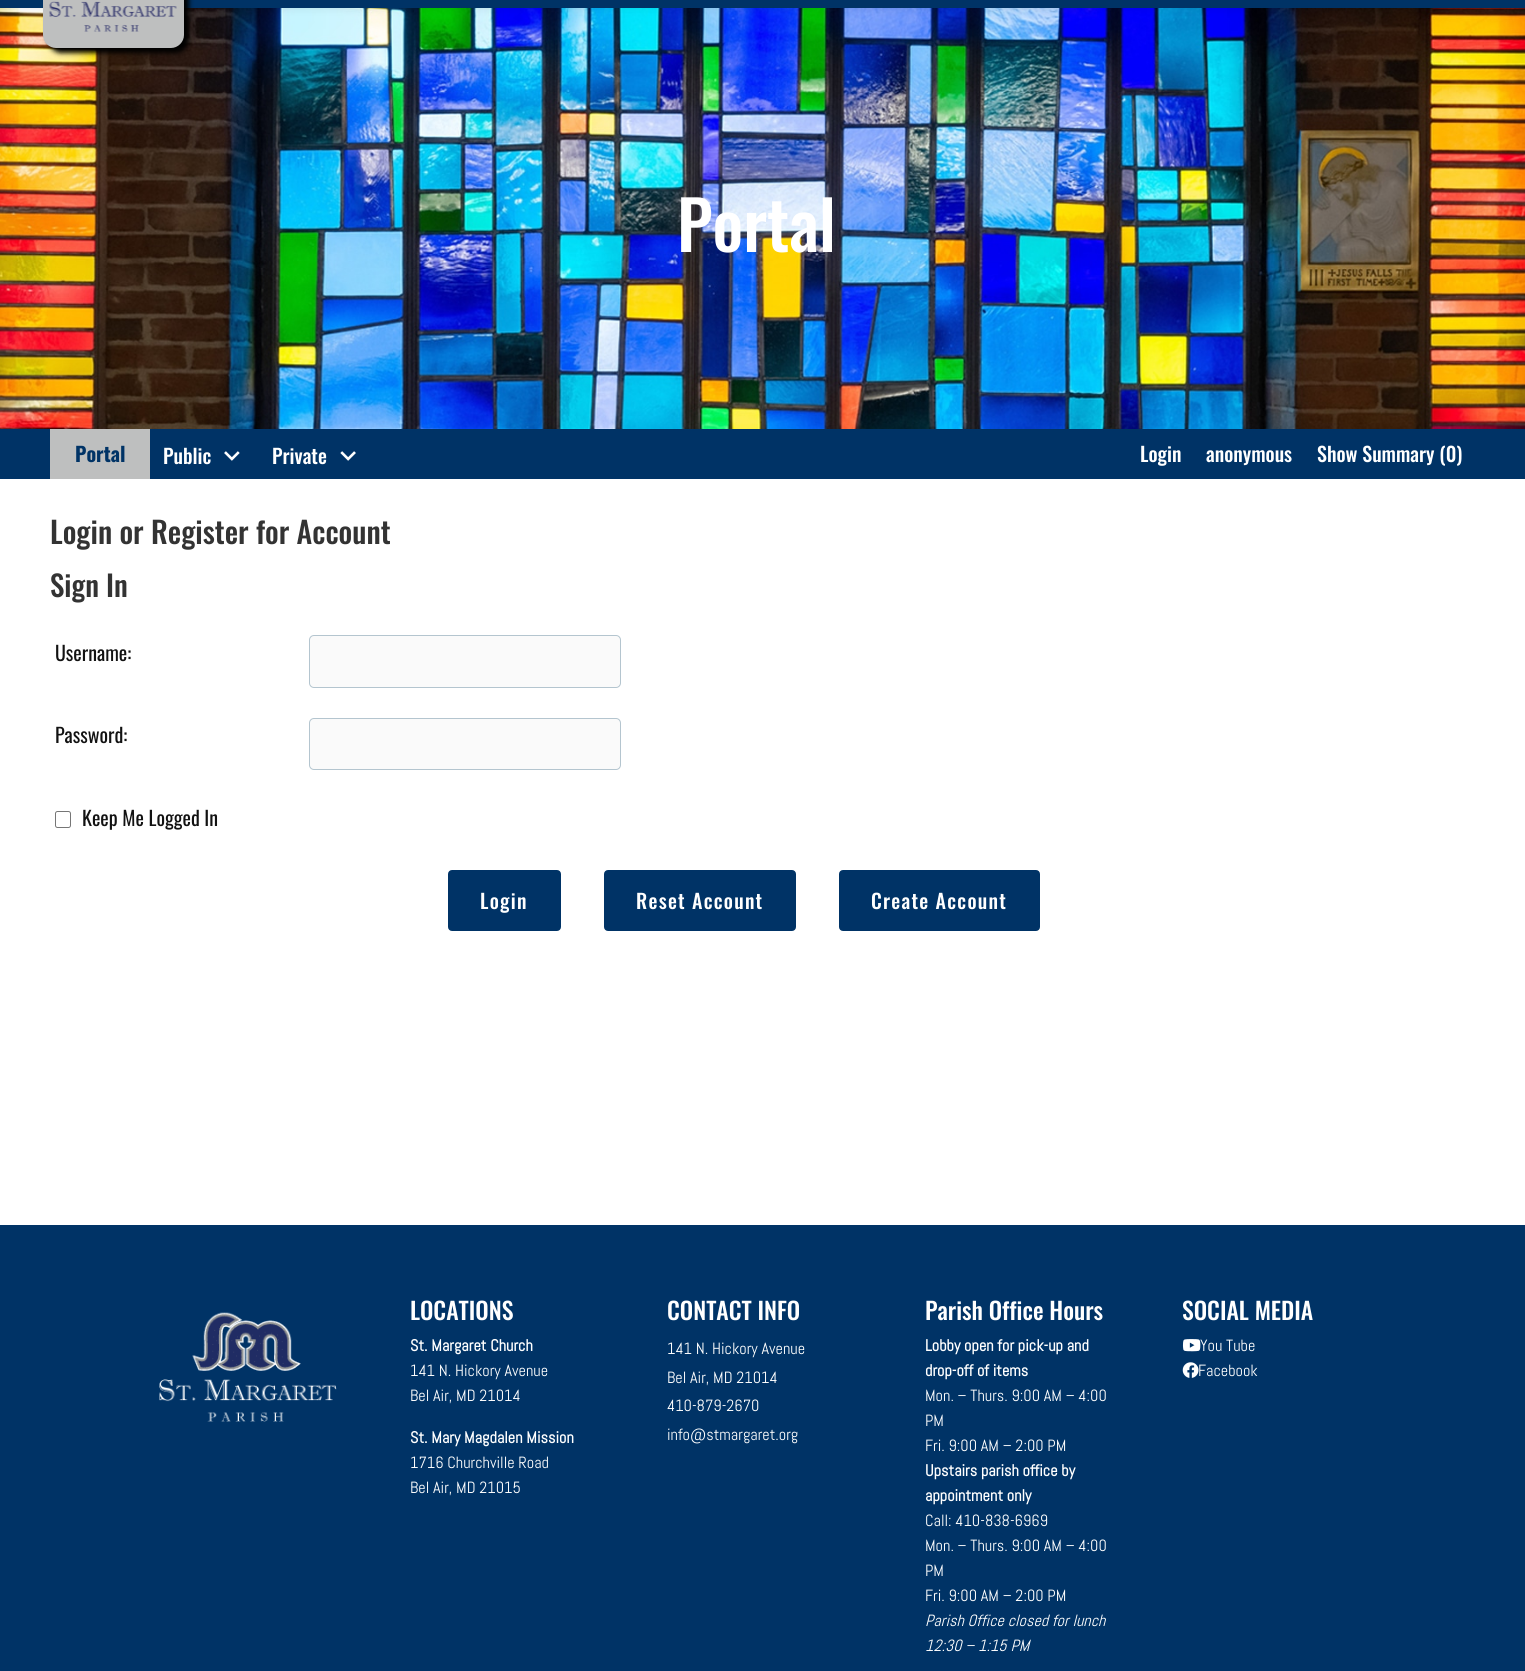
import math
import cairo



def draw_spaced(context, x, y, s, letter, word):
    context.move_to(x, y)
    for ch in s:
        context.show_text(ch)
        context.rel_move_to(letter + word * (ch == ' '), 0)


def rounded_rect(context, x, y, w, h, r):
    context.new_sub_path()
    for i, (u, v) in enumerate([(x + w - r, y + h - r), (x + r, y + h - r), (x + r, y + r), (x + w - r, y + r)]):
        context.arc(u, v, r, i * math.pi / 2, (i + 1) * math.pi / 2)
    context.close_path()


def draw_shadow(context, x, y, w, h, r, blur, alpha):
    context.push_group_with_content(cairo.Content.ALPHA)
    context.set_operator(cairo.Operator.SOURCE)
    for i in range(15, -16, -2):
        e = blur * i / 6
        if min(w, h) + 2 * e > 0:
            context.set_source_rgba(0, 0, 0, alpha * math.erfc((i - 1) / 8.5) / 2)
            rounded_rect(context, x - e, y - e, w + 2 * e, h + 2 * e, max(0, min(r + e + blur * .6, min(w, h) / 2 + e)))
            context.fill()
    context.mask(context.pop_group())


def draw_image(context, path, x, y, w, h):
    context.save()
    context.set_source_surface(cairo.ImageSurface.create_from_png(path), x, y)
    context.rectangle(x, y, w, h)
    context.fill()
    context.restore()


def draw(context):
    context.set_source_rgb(1, 1, 1)
    context.paint()
    draw_image(context, "images/2.png", 0, 8, 1525, 421)
    context.set_source_rgb(0, 0, 0)
    draw_shadow(context, 0, -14, 1525, 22, 0, 4.5, 0.1)
    context.set_source_rgb(0, 51 / 255, 102 / 255)
    context.rectangle(0, 0, 1525, 8)
    context.fill()
    context.set_source_rgb(0, 0, 0)
    draw_shadow(context, 48, -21, 141, 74, 13, 2.5, 1)
    context.set_source_rgb(190 / 255, 191 / 255, 191 / 255)
    context.new_path()
    context.move_to(43, -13)
    context.line_to(184, -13)
    context.line_to(184, 35)
    context.curve_to(184, 42, 178, 48, 171, 48)
    context.line_to(56, 48)
    context.curve_to(49, 48, 43, 42, 43, 35)
    context.close_path()
    context.fill()
    draw_image(context, "images/1.png", 49, 1, 128, 31)
    context.set_source_rgb(0, 51 / 255, 102 / 255)
    context.rectangle(0, 429, 1525, 50)
    context.fill()
    context.set_source_rgb(190 / 255, 191 / 255, 191 / 255)
    context.rectangle(50, 429, 100, 50)
    context.fill()
    draw_image(context, "images/3.png", 224, 451, 16, 10)
    draw_image(context, "images/4.png", 340, 451, 16, 10)
    context.set_source_rgb(250 / 255, 250 / 255, 250 / 255)
    rounded_rect(context, 309.5, 635.5, 311, 52, 4.5)
    context.fill_preserve()
    context.set_source_rgb(180 / 255, 197 / 255, 207 / 255)
    context.set_line_width(1)
    context.stroke()
    context.set_source_rgb(250 / 255, 250 / 255, 250 / 255)
    rounded_rect(context, 309.5, 718.5, 311, 51, 4.5)
    context.fill_preserve()
    context.set_source_rgb(180 / 255, 197 / 255, 207 / 255)
    context.stroke()
    rounded_rect(context, 55.5, 811.5, 15, 16, 2)
    context.set_source_rgb(118 / 255, 118 / 255, 118 / 255)
    context.stroke()
    context.set_source_rgb(0, 51 / 255, 102 / 255)
    rounded_rect(context, 449.5, 871.5, 110, 58, 2.5)
    context.fill_preserve()
    context.set_line_width(3)
    context.stroke()
    rounded_rect(context, 605.5, 871.5, 189, 58, 2.5)
    context.fill_preserve()
    context.stroke()
    rounded_rect(context, 840.5, 871.5, 198, 58, 2.5)
    context.fill_preserve()
    context.stroke()
    context.rectangle(0, 1225, 1525, 446)
    context.fill()
    draw_image(context, "images/5.png", 159, 1312, 178, 110)
    draw_image(context, "images/6.png", 1182, 1339, 19, 13)
    draw_image(context, "images/7.png", 1182, 1362, 17, 16)
    context.select_font_face("Oswald Medium")
    context.set_font_size(67.5)
    context.set_source_rgb(1, 1, 1)
    context.move_to(677, 252)
    context.show_text("Portal")
    context.select_font_face("Oswald", cairo.FontSlant.NORMAL, cairo.FontWeight.BOLD)
    context.set_font_size(20)
    context.set_source_rgb(0, 51 / 255, 102 / 255)
    context.move_to(75, 462)
    context.show_text("Portal")
    context.select_font_face("Oswald Medium")
    context.set_source_rgb(1, 1, 1)
    context.move_to(163, 464)
    context.show_text("Public")
    context.move_to(272, 464)
    context.show_text("Private")
    context.move_to(1140, 462)
    context.show_text("Login")
    context.move_to(1206, 462)
    context.show_text("anonymous")
    context.move_to(1317, 462)
    context.show_text("Show Summary (0)")
    context.set_font_size(30)
    context.set_source_rgb(51 / 255, 51 / 255, 51 / 255)
    context.move_to(50, 544)
    context.show_text("Login or Register for Account")
    context.set_font_size(29)
    context.move_to(50, 597)
    context.show_text("Sign In")
    context.select_font_face("Oswald")
    context.set_font_size(20)
    context.set_source_rgb(18 / 255, 18 / 255, 18 / 255)
    context.move_to(55, 661)
    context.show_text("Username:")
    context.move_to(55, 743)
    context.show_text("Password:")
    context.move_to(82, 826)
    context.show_text("Keep Me Logged In")
    context.select_font_face("Oswald Medium")
    context.set_source_rgb(1, 1, 1)
    draw_spaced(context, 480, 909, "Login", 1.25, 0)
    draw_spaced(context, 636, 909, "Reset Account", 1.25, 0)
    draw_spaced(context, 871, 909, "Create Account", 1.25, 0)
    context.set_font_size(23.75)
    context.move_to(410, 1320)
    context.show_text("LOCATIONS")
    context.select_font_face("Abel", cairo.FontSlant.NORMAL, cairo.FontWeight.BOLD)
    context.set_font_size(16.25)
    context.move_to(410, 1351)
    context.show_text("St. Margaret Church")
    context.select_font_face("Abel")
    context.move_to(410, 1376)
    context.show_text("141 N. Hickory Avenue")
    context.move_to(410, 1401)
    context.show_text("Bel Air, MD 21014")
    context.select_font_face("Abel", cairo.FontSlant.NORMAL, cairo.FontWeight.BOLD)
    context.move_to(410, 1443)
    context.show_text("St. Mary Magdalen Mission")
    context.select_font_face("Abel")
    context.move_to(410, 1468)
    context.show_text("1716 Churchville Road")
    context.move_to(410, 1493)
    context.show_text("Bel Air, MD 21015")
    context.select_font_face("Oswald Medium")
    context.set_font_size(23.75)
    context.move_to(667, 1320)
    context.show_text("CONTACT INFO")
    context.select_font_face("Abel")
    context.set_font_size(16.25)
    context.move_to(667, 1354)
    context.show_text("141 N. Hickory Avenue")
    context.move_to(667, 1383)
    context.show_text("Bel Air, MD 21014")
    context.move_to(667, 1411)
    context.show_text("410-879-2670")
    context.move_to(667, 1440)
    context.show_text("info@stmargaret.org")
    context.select_font_face("Oswald Medium")
    context.set_font_size(23.75)
    context.move_to(925, 1320)
    context.show_text("Parish Office Hours")
    context.select_font_face("Abel", cairo.FontSlant.NORMAL, cairo.FontWeight.BOLD)
    context.set_font_size(16.25)
    context.move_to(925, 1351)
    context.show_text("Lobby open for pick-up and")
    context.move_to(925, 1376)
    context.show_text("drop-off of items")
    context.select_font_face("Abel")
    context.move_to(925, 1401)
    context.show_text("Mon. – Thurs. 9:00 AM – 4:00")
    context.move_to(925, 1426)
    context.show_text("PM")
    context.move_to(925, 1451)
    context.show_text("Fri. 9:00 AM – 2:00 PM")
    context.select_font_face("Abel", cairo.FontSlant.NORMAL, cairo.FontWeight.BOLD)
    context.move_to(925, 1476)
    context.show_text("Upstairs parish office by")
    context.move_to(925, 1501)
    context.show_text("appointment only")
    context.select_font_face("Abel")
    context.move_to(925, 1526)
    context.show_text("Call: 410-838-6969")
    context.move_to(925, 1551)
    context.show_text("Mon. – Thurs. 9:00 AM – 4:00")
    context.move_to(925, 1576)
    context.show_text("PM")
    context.move_to(925, 1601)
    context.show_text("Fri. 9:00 AM – 2:00 PM")
    context.select_font_face("Abel", cairo.FontSlant.ITALIC)
    context.move_to(925, 1626)
    context.show_text("Parish Office closed for lunch")
    context.move_to(925, 1651)
    context.show_text("12:30 – 1:15 PM")
    context.select_font_face("Oswald Medium")
    context.set_font_size(23.75)
    context.move_to(1182, 1320)
    context.show_text("SOCIAL MEDIA")
    context.select_font_face("Abel")
    context.set_font_size(16.25)
    context.move_to(1200, 1351)
    context.show_text("You Tube")
    context.move_to(1198, 1376)
    context.show_text("Facebook")


surface = cairo.ImageSurface(cairo.Format.RGB24, 1525, 1671)
context = cairo.Context(surface)
options = cairo.FontOptions()
options.set_hint_metrics(cairo.HintMetrics.OFF)
options.set_hint_style(cairo.HintStyle.NONE)
context.set_font_options(options)
context.set_miter_limit(4)
draw(context)
surface.write_to_png("out.png")
